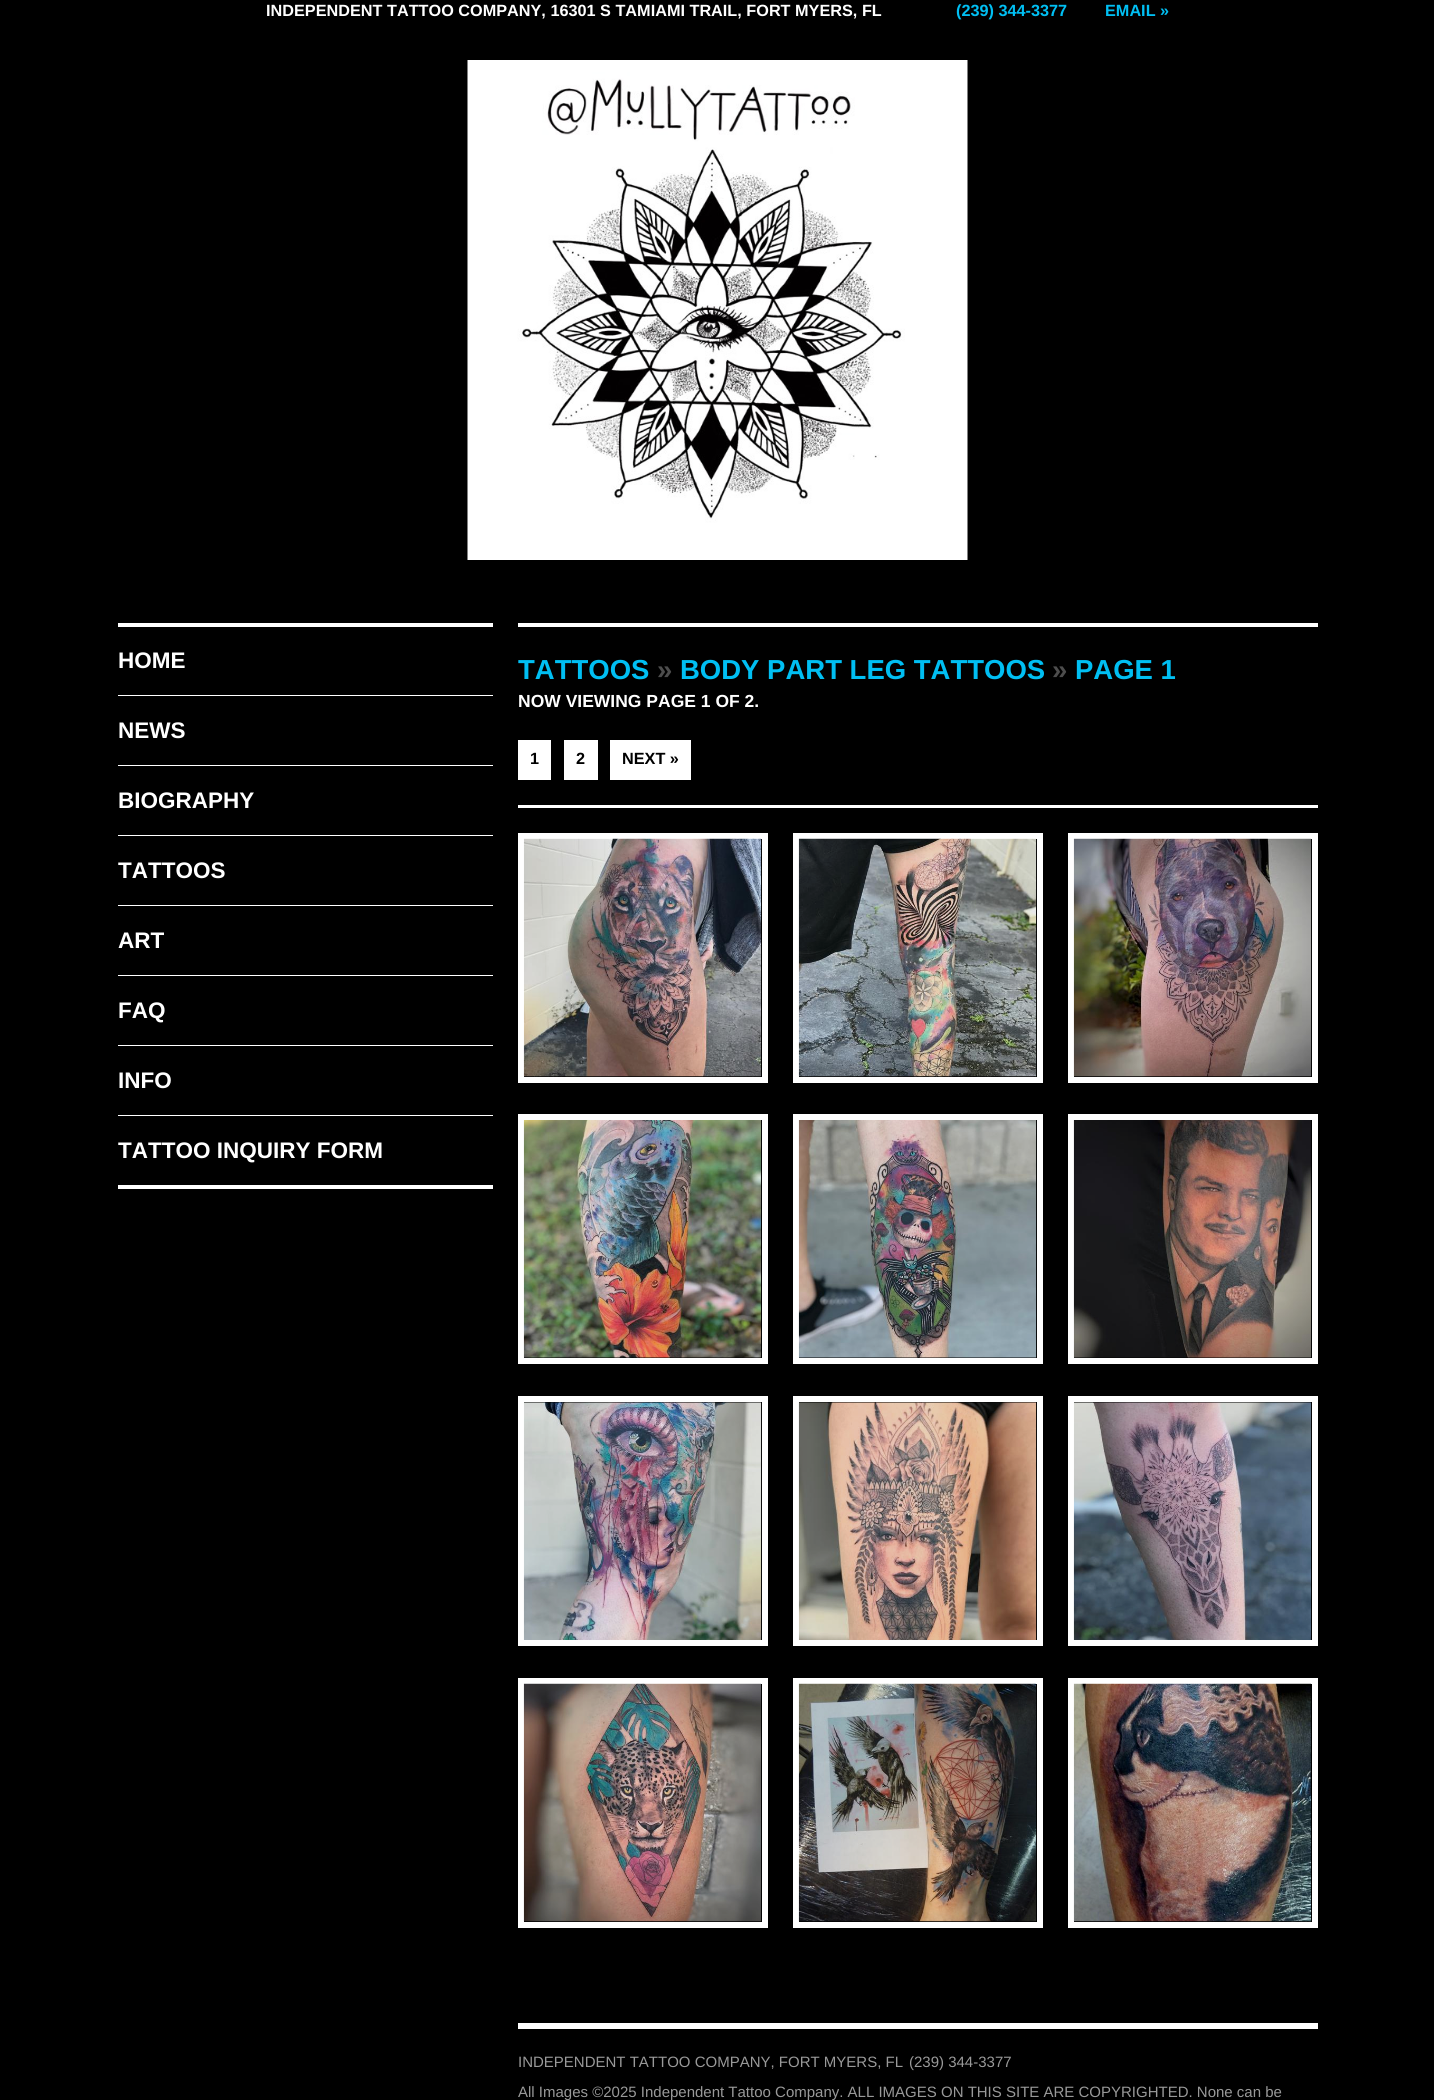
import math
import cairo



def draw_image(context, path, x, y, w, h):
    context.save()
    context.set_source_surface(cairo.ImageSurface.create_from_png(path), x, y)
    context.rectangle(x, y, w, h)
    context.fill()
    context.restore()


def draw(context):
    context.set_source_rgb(0, 0, 0)
    context.paint()
    draw_image(context, "images/1.png", 467, 60, 501, 500)
    context.set_source_rgb(1, 1, 1)
    context.rectangle(118, 623, 375, 4)
    context.fill()
    context.rectangle(118, 1185, 375, 4)
    context.fill()
    context.rectangle(118, 695, 375, 1)
    context.fill()
    context.rectangle(118, 765, 375, 1)
    context.fill()
    context.rectangle(118, 835, 375, 1)
    context.fill()
    context.rectangle(118, 905, 375, 1)
    context.fill()
    context.rectangle(118, 975, 375, 1)
    context.fill()
    context.rectangle(118, 1045, 375, 1)
    context.fill()
    context.rectangle(118, 1115, 375, 1)
    context.fill()
    context.rectangle(518, 623, 800, 4)
    context.fill()
    context.rectangle(518, 805, 800, 3)
    context.fill()
    context.rectangle(518, 740, 33, 40)
    context.fill()
    context.rectangle(564, 740, 34, 40)
    context.fill()
    context.rectangle(610, 740, 81, 40)
    context.fill()
    context.rectangle(521, 836, 244, 244)
    context.set_line_width(6)
    context.stroke()
    draw_image(context, "images/2.png", 523, 838, 239, 239)
    context.rectangle(796, 836, 244, 244)
    context.stroke()
    draw_image(context, "images/3.png", 798, 838, 239, 239)
    context.rectangle(1071, 836, 244, 244)
    context.stroke()
    draw_image(context, "images/4.png", 1073, 838, 239, 239)
    context.rectangle(521, 1117, 244, 244)
    context.stroke()
    draw_image(context, "images/5.png", 523, 1120, 239, 238)
    context.rectangle(796, 1117, 244, 244)
    context.stroke()
    draw_image(context, "images/6.png", 798, 1120, 239, 238)
    context.rectangle(1071, 1117, 244, 244)
    context.stroke()
    draw_image(context, "images/7.png", 1073, 1120, 239, 238)
    context.rectangle(521, 1399, 244, 244)
    context.stroke()
    draw_image(context, "images/8.png", 523, 1402, 239, 238)
    context.rectangle(796, 1399, 244, 244)
    context.stroke()
    draw_image(context, "images/9.png", 798, 1402, 239, 238)
    context.rectangle(1071, 1399, 244, 244)
    context.stroke()
    draw_image(context, "images/10.png", 1073, 1402, 239, 238)
    context.rectangle(521, 1681, 244, 244)
    context.stroke()
    draw_image(context, "images/11.png", 523, 1683, 239, 239)
    context.rectangle(796, 1681, 244, 244)
    context.stroke()
    draw_image(context, "images/12.png", 798, 1683, 239, 239)
    context.rectangle(1071, 1681, 244, 244)
    context.stroke()
    draw_image(context, "images/13.png", 1073, 1683, 239, 239)
    context.rectangle(518, 2023, 800, 6)
    context.fill()
    context.select_font_face("Liberation Sans", cairo.FontSlant.NORMAL, cairo.FontWeight.BOLD)
    context.set_font_size(16.25)
    context.move_to(266, 16)
    context.show_text("INDEPENDENT TATTOO COMPANY, 16301 S TAMIAMI TRAIL, FORT MYERS, FL")
    context.set_source_rgb(0, 191 / 255, 243 / 255)
    context.move_to(956, 16)
    context.show_text("(239) 344-3377")
    context.move_to(1105, 16)
    context.show_text("EMAIL »")
    context.set_font_size(22.5)
    context.set_source_rgb(1, 1, 1)
    context.move_to(118, 668)
    context.show_text("HOME")
    context.move_to(118, 738)
    context.show_text("NEWS")
    context.move_to(118, 808)
    context.show_text("BIOGRAPHY")
    context.save()
    context.rectangle(118, 836, 375, 69)
    context.clip()
    context.move_to(118, 878)
    context.show_text("TATTOOS")
    context.restore()
    context.move_to(118, 948)
    context.show_text("ART")
    context.move_to(118, 1018)
    context.show_text("FAQ")
    context.move_to(118, 1088)
    context.show_text("INFO")
    context.save()
    context.rectangle(118, 1116, 375, 69)
    context.clip()
    context.move_to(118, 1158)
    context.show_text("TATTOO INQUIRY FORM")
    context.restore()
    context.set_font_size(27.5)
    context.set_source_rgb(0, 191 / 255, 243 / 255)
    context.move_to(518, 679)
    context.show_text("TATTOOS")
    context.set_source_rgb(77 / 255, 77 / 255, 77 / 255)
    context.move_to(657, 679)
    context.show_text("»")
    context.set_source_rgb(0, 191 / 255, 243 / 255)
    context.move_to(680, 679)
    context.show_text("BODY PART LEG TATTOOS")
    context.set_source_rgb(77 / 255, 77 / 255, 77 / 255)
    context.move_to(1052, 679)
    context.show_text("»")
    context.set_source_rgb(0, 191 / 255, 243 / 255)
    context.move_to(1075, 679)
    context.show_text("PAGE 1")
    context.set_font_size(17.5)
    context.set_source_rgb(1, 1, 1)
    context.move_to(518, 707)
    context.show_text("NOW VIEWING PAGE 1 OF 2.")
    context.set_font_size(16.25)
    context.set_source_rgb(0, 0, 0)
    context.move_to(530, 764)
    context.show_text("1")
    context.move_to(576, 764)
    context.show_text("2")
    context.move_to(622, 764)
    context.show_text("NEXT »")
    context.select_font_face("Liberation Sans")
    context.set_font_size(15)
    context.set_source_rgb(153 / 255, 153 / 255, 153 / 255)
    context.move_to(518, 2067)
    context.show_text("INDEPENDENT TATTOO COMPANY, FORT MYERS, FL")
    context.move_to(909, 2067)
    context.show_text("(239) 344-3377")
    context.move_to(518, 2097)
    context.show_text("All Images ©2025 Independent Tattoo Company. ALL IMAGES ON THIS SITE ARE COPYRIGHTED. None can be")


surface = cairo.ImageSurface(cairo.Format.RGB24, 1434, 2100)
context = cairo.Context(surface)
options = cairo.FontOptions()
options.set_hint_metrics(cairo.HintMetrics.OFF)
options.set_hint_style(cairo.HintStyle.NONE)
context.set_font_options(options)
context.set_miter_limit(4)
draw(context)
surface.write_to_png("out.png")
